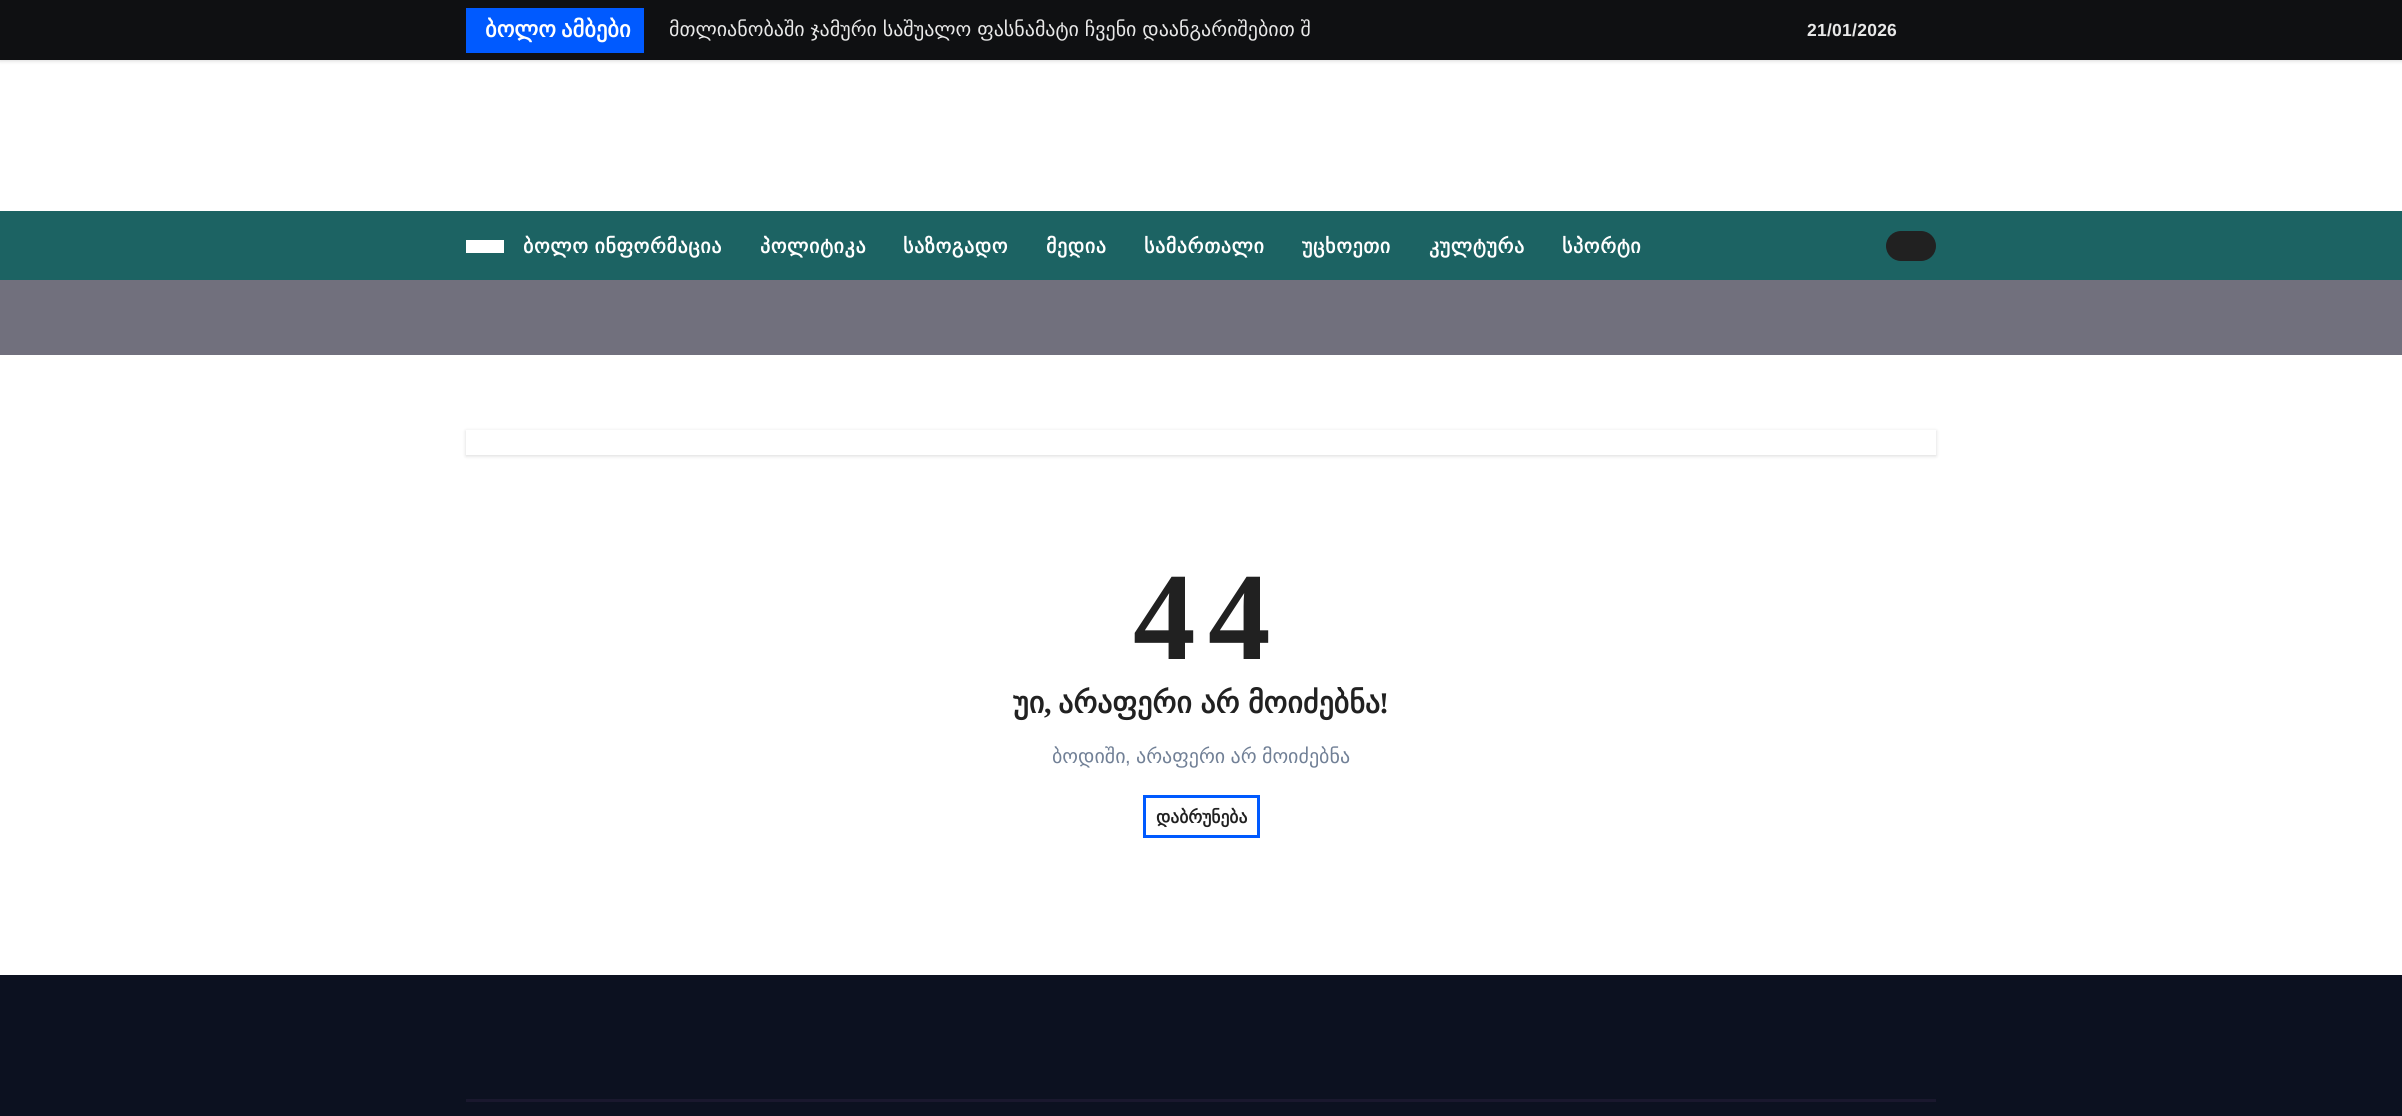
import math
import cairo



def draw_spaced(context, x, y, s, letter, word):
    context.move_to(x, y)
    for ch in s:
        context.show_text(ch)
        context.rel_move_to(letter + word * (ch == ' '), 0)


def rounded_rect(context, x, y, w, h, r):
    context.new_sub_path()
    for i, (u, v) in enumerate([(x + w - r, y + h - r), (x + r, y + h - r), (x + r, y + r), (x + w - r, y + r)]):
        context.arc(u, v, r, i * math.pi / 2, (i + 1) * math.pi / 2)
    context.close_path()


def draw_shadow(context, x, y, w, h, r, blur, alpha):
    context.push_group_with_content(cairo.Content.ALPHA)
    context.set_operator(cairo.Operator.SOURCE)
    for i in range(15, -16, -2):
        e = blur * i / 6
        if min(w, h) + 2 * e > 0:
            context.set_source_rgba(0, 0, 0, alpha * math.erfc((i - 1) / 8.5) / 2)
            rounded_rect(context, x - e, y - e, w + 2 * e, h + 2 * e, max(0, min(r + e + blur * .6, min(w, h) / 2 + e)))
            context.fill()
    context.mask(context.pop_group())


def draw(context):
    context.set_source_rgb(1, 1, 1)
    context.paint()
    context.set_source_rgb(0, 0, 0)
    draw_shadow(context, 0, 1, 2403, 60, 0, 2, 0.15)
    context.set_source_rgb(15 / 255, 16 / 255, 18 / 255)
    context.rectangle(0, 0, 2402, 60)
    context.fill()
    context.set_source_rgb(0, 90 / 255, 1)
    context.rectangle(466, 8, 178, 45)
    context.fill()
    context.set_source_rgb(28 / 255, 99 / 255, 99 / 255)
    context.rectangle(0, 211, 2402, 69)
    context.fill()
    context.set_source_rgb(1, 1, 1)
    context.rectangle(466, 240, 38, 13)
    context.fill()
    context.set_source_rgb(33 / 255, 33 / 255, 33 / 255)
    rounded_rect(context, 1886, 231, 50, 30, 15)
    context.fill()
    context.set_source_rgb(113 / 255, 112 / 255, 125 / 255)
    context.rectangle(0, 280, 2402, 75)
    context.fill()
    context.set_source_rgb(0, 0, 0)
    draw_shadow(context, 466, 431, 1470, 25, 0, 2, 0.15)
    context.set_source_rgb(1, 1, 1)
    context.rectangle(466, 430, 1470, 25)
    context.fill()
    context.rectangle(1144.5, 796.5, 114, 40)
    context.set_source_rgb(0, 90 / 255, 1)
    context.set_line_width(3)
    context.stroke()
    context.set_source_rgb(12 / 255, 17 / 255, 32 / 255)
    context.rectangle(0, 975, 2402, 141)
    context.fill()
    context.set_source_rgb(26 / 255, 24 / 255, 46 / 255)
    context.rectangle(466, 1099, 1470, 3)
    context.fill()
    context.select_font_face("DejaVu Sans", cairo.FontSlant.NORMAL, cairo.FontWeight.BOLD)
    context.set_font_size(22.5)
    context.set_source_rgb(1, 1, 1)
    draw_spaced(context, 485, 37, "ბოლო ამბები", 0, -2)
    context.select_font_face("DejaVu Sans")
    context.set_font_size(20)
    context.set_source_rgb(232 / 255, 232 / 255, 232 / 255)
    draw_spaced(context, 669, 36, "მთლიანობაში ჯამური საშუალო ფასნამატი ჩვენი დაანგარიშებით შ", 0, -0.5)
    context.select_font_face("Liberation Sans", cairo.FontSlant.NORMAL, cairo.FontWeight.BOLD)
    context.set_font_size(17.5)
    draw_spaced(context, 1807, 36, "21/01/2026", 0.25, 0)
    context.select_font_face("DejaVu Sans", cairo.FontSlant.NORMAL, cairo.FontWeight.BOLD)
    context.set_font_size(20)
    context.set_source_rgb(1, 1, 1)
    draw_spaced(context, 523, 253, "ბოლო ინფორმაცია", 0.6, -1)
    draw_spaced(context, 760, 253, "პოლიტიკა", 0.6, 0)
    draw_spaced(context, 903, 253, "საზოგადო", 0.6, 0)
    draw_spaced(context, 1046, 253, "მედია", 0.6, 0)
    draw_spaced(context, 1144, 253, "სამართალი", 0.6, 0)
    draw_spaced(context, 1302, 253, "უცხოეთი", 0.6, 0)
    draw_spaced(context, 1429, 253, "კულტურა", 0.6, 0)
    draw_spaced(context, 1562, 253, "სპორტი", 0.6, 0)
    context.select_font_face("Liberation Serif", cairo.FontSlant.NORMAL, cairo.FontWeight.BOLD)
    context.set_font_size(125)
    context.set_source_rgb(33 / 255, 33 / 255, 33 / 255)
    context.move_to(1133, 659)
    context.show_text("4")
    context.move_to(1208, 659)
    context.show_text("4")
    context.select_font_face("DejaVu Sans", cairo.FontSlant.NORMAL, cairo.FontWeight.BOLD)
    context.set_font_size(30)
    context.move_to(1013, 713)
    context.show_text("უი")
    context.select_font_face("Liberation Serif", cairo.FontSlant.NORMAL, cairo.FontWeight.BOLD)
    context.move_to(1044, 713)
    context.show_text(",")
    context.select_font_face("DejaVu Sans", cairo.FontSlant.NORMAL, cairo.FontWeight.BOLD)
    draw_spaced(context, 1058, 713, "არაფერი არ მოიძებნა", 0, -1)
    context.select_font_face("Liberation Serif", cairo.FontSlant.NORMAL, cairo.FontWeight.BOLD)
    context.move_to(1379, 713)
    context.show_text("!")
    context.select_font_face("DejaVu Sans")
    context.set_font_size(20)
    context.set_source_rgb(113 / 255, 128 / 255, 150 / 255)
    context.move_to(1052, 763)
    context.show_text("ბოდიში")
    context.select_font_face("Liberation Sans")
    context.move_to(1125, 763)
    context.show_text(",")
    context.select_font_face("DejaVu Sans")
    draw_spaced(context, 1136, 763, "არაფერი არ მოიძებნა", 0, -1)
    context.select_font_face("DejaVu Sans", cairo.FontSlant.NORMAL, cairo.FontWeight.BOLD)
    context.set_font_size(17.5)
    context.set_source_rgb(33 / 255, 33 / 255, 33 / 255)
    context.move_to(1156, 823)
    context.show_text("დაბრუნება")


surface = cairo.ImageSurface(cairo.Format.RGB24, 2402, 1116)
context = cairo.Context(surface)
options = cairo.FontOptions()
options.set_hint_metrics(cairo.HintMetrics.OFF)
options.set_hint_style(cairo.HintStyle.NONE)
context.set_font_options(options)
context.set_miter_limit(4)
draw(context)
surface.write_to_png("out.png")
